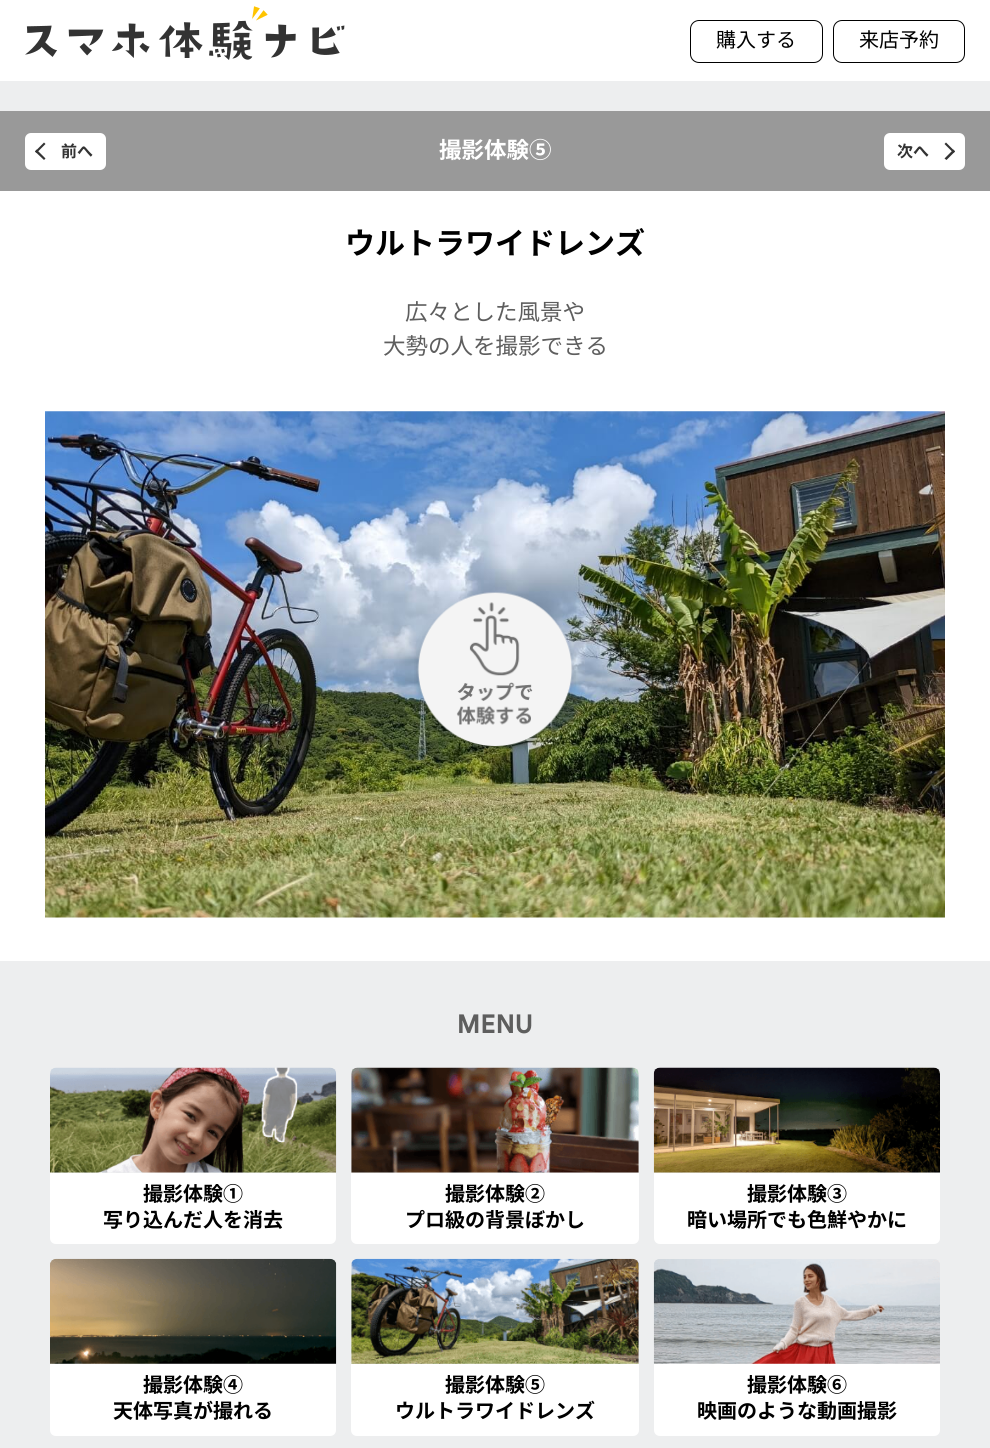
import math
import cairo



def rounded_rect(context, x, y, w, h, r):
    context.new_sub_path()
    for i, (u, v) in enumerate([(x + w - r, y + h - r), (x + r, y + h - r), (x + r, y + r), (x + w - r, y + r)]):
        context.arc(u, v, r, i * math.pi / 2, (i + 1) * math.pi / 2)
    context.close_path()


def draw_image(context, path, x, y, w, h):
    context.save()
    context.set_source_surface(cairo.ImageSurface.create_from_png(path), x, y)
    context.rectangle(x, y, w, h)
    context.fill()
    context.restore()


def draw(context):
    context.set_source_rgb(237 / 255, 238 / 255, 239 / 255)
    context.paint()
    context.set_source_rgb(1, 1, 1)
    context.rectangle(0, 0, 990, 81)
    context.fill()
    draw_image(context, "images/1.png", 25, 6, 320, 54)
    rounded_rect(context, 690.5, 20.5, 132, 42, 8.5)
    context.set_source_rgb(0, 0, 0)
    context.set_line_width(1)
    context.stroke()
    rounded_rect(context, 833.5, 20.5, 131, 42, 8.5)
    context.stroke()
    context.set_source_rgb(153 / 255, 153 / 255, 153 / 255)
    context.rectangle(0, 111, 990, 80)
    context.fill()
    context.set_source_rgb(1, 1, 1)
    rounded_rect(context, 25, 133, 81, 37, 6)
    context.fill()
    context.set_source_rgb(51 / 255, 51 / 255, 51 / 255)
    context.new_path()
    context.move_to(36.5, 149.5)
    context.line_to(45.5, 158.5)
    context.line_to(44, 160)
    context.line_to(35, 151.5)
    context.close_path()
    context.fill()
    context.new_path()
    context.move_to(44, 142.5)
    context.line_to(45.5, 144)
    context.line_to(36.5, 153)
    context.line_to(35, 151.5)
    context.close_path()
    context.fill()
    context.set_source_rgb(1, 1, 1)
    rounded_rect(context, 884, 133, 81, 37, 6)
    context.fill()
    context.set_source_rgb(51 / 255, 51 / 255, 51 / 255)
    context.new_path()
    context.move_to(946, 142.5)
    context.line_to(955, 151.5)
    context.line_to(953.5, 153)
    context.line_to(944.5, 144)
    context.close_path()
    context.fill()
    context.new_path()
    context.move_to(953.5, 149.5)
    context.line_to(955, 151.5)
    context.line_to(946.5, 160)
    context.line_to(944.5, 158.5)
    context.close_path()
    context.fill()
    context.set_source_rgb(1, 1, 1)
    context.rectangle(0, 191, 990, 770)
    context.fill()
    draw_image(context, "images/2.png", 45, 411, 900, 507)
    draw_image(context, "images/3.png", 414, 592, 162, 162)
    draw_image(context, "images/4.png", 50, 1067, 287, 106)
    context.new_path()
    context.move_to(50, 1173)
    context.line_to(336, 1173)
    context.line_to(336, 1238)
    context.curve_to(336, 1241.5, 333.5, 1244, 330, 1244)
    context.line_to(56, 1244)
    context.curve_to(52.5, 1244, 50, 1241.5, 50, 1238)
    context.close_path()
    context.fill()
    draw_image(context, "images/5.png", 351, 1067, 288, 106)
    context.new_path()
    context.move_to(351, 1173)
    context.line_to(639, 1173)
    context.line_to(639, 1238)
    context.curve_to(639, 1241.5, 636.5, 1244, 633, 1244)
    context.line_to(357, 1244)
    context.curve_to(353.5, 1244, 351, 1241.5, 351, 1238)
    context.close_path()
    context.fill()
    draw_image(context, "images/6.png", 653, 1067, 287, 106)
    context.new_path()
    context.move_to(654, 1173)
    context.line_to(940, 1173)
    context.line_to(940, 1238)
    context.curve_to(940, 1241.5, 937.5, 1244, 934, 1244)
    context.line_to(660, 1244)
    context.curve_to(656.5, 1244, 654, 1241.5, 654, 1238)
    context.close_path()
    context.fill()
    draw_image(context, "images/7.png", 50, 1258, 287, 106)
    context.new_path()
    context.move_to(50, 1364)
    context.line_to(336, 1364)
    context.line_to(336, 1430)
    context.curve_to(336, 1433.5, 333.5, 1436, 330, 1436)
    context.line_to(56, 1436)
    context.curve_to(52.5, 1436, 50, 1433.5, 50, 1430)
    context.close_path()
    context.fill()
    draw_image(context, "images/8.png", 351, 1258, 288, 106)
    context.new_path()
    context.move_to(351, 1364)
    context.line_to(639, 1364)
    context.line_to(639, 1430)
    context.curve_to(639, 1433.5, 636.5, 1436, 633, 1436)
    context.line_to(357, 1436)
    context.curve_to(353.5, 1436, 351, 1433.5, 351, 1430)
    context.close_path()
    context.fill()
    draw_image(context, "images/9.png", 653, 1259, 287, 105)
    context.new_path()
    context.move_to(654, 1364)
    context.line_to(940, 1364)
    context.line_to(940, 1430)
    context.curve_to(940, 1433.5, 937.5, 1436, 934, 1436)
    context.line_to(660, 1436)
    context.curve_to(656.5, 1436, 654, 1433.5, 654, 1430)
    context.close_path()
    context.fill()
    context.select_font_face("Noto Sans JP")
    context.set_font_size(20)
    context.set_source_rgb(0, 0, 0)
    context.move_to(716, 47)
    context.show_text("購入する")
    context.move_to(859, 47)
    context.show_text("来店予約")
    context.select_font_face("Noto Sans JP", cairo.FontSlant.NORMAL, cairo.FontWeight.BOLD)
    context.set_font_size(16)
    context.set_source_rgb(51 / 255, 51 / 255, 51 / 255)
    context.move_to(61, 157)
    context.show_text("前へ")
    context.set_font_size(22.5)
    context.set_source_rgb(1, 1, 1)
    context.move_to(439, 158)
    context.show_text("撮影体験⑤")
    context.set_font_size(16)
    context.set_source_rgb(51 / 255, 51 / 255, 51 / 255)
    context.move_to(897, 157)
    context.show_text("次へ")
    context.set_font_size(30)
    context.set_source_rgb(0, 0, 0)
    context.move_to(345, 254)
    context.show_text("ウルトラワイドレンズ")
    context.select_font_face("Noto Sans JP")
    context.set_font_size(22.5)
    context.set_source_rgb(94 / 255, 94 / 255, 94 / 255)
    context.move_to(405, 320)
    context.show_text("広々とした風景や")
    context.move_to(383, 354)
    context.show_text("大勢の人を撮影できる")
    context.select_font_face("Google Sans", cairo.FontSlant.NORMAL, cairo.FontWeight.BOLD)
    context.set_font_size(26)
    context.move_to(457, 1033)
    context.show_text("MENU")
    context.select_font_face("Noto Sans JP", cairo.FontSlant.NORMAL, cairo.FontWeight.BOLD)
    context.set_font_size(20)
    context.set_source_rgb(0, 0, 0)
    context.move_to(143, 1201)
    context.show_text("撮影体験①")
    context.move_to(103, 1227)
    context.show_text("写り込んだ人を消去")
    context.move_to(445, 1201)
    context.show_text("撮影体験②")
    context.move_to(405, 1227)
    context.show_text("プロ級の背景ぼかし")
    context.move_to(747, 1201)
    context.show_text("撮影体験③")
    context.move_to(687, 1227)
    context.show_text("暗い場所でも色鮮やかに")
    context.move_to(143, 1392)
    context.show_text("撮影体験④")
    context.move_to(113, 1418)
    context.show_text("天体写真が撮れる")
    context.move_to(445, 1392)
    context.show_text("撮影体験⑤")
    context.move_to(395, 1418)
    context.show_text("ウルトラワイドレンズ")
    context.move_to(747, 1392)
    context.show_text("撮影体験⑥")
    context.move_to(697, 1418)
    context.show_text("映画のような動画撮影")


surface = cairo.ImageSurface(cairo.Format.RGB24, 990, 1448)
context = cairo.Context(surface)
options = cairo.FontOptions()
options.set_hint_metrics(cairo.HintMetrics.OFF)
options.set_hint_style(cairo.HintStyle.NONE)
context.set_font_options(options)
context.set_miter_limit(4)
draw(context)
surface.write_to_png("out.png")
